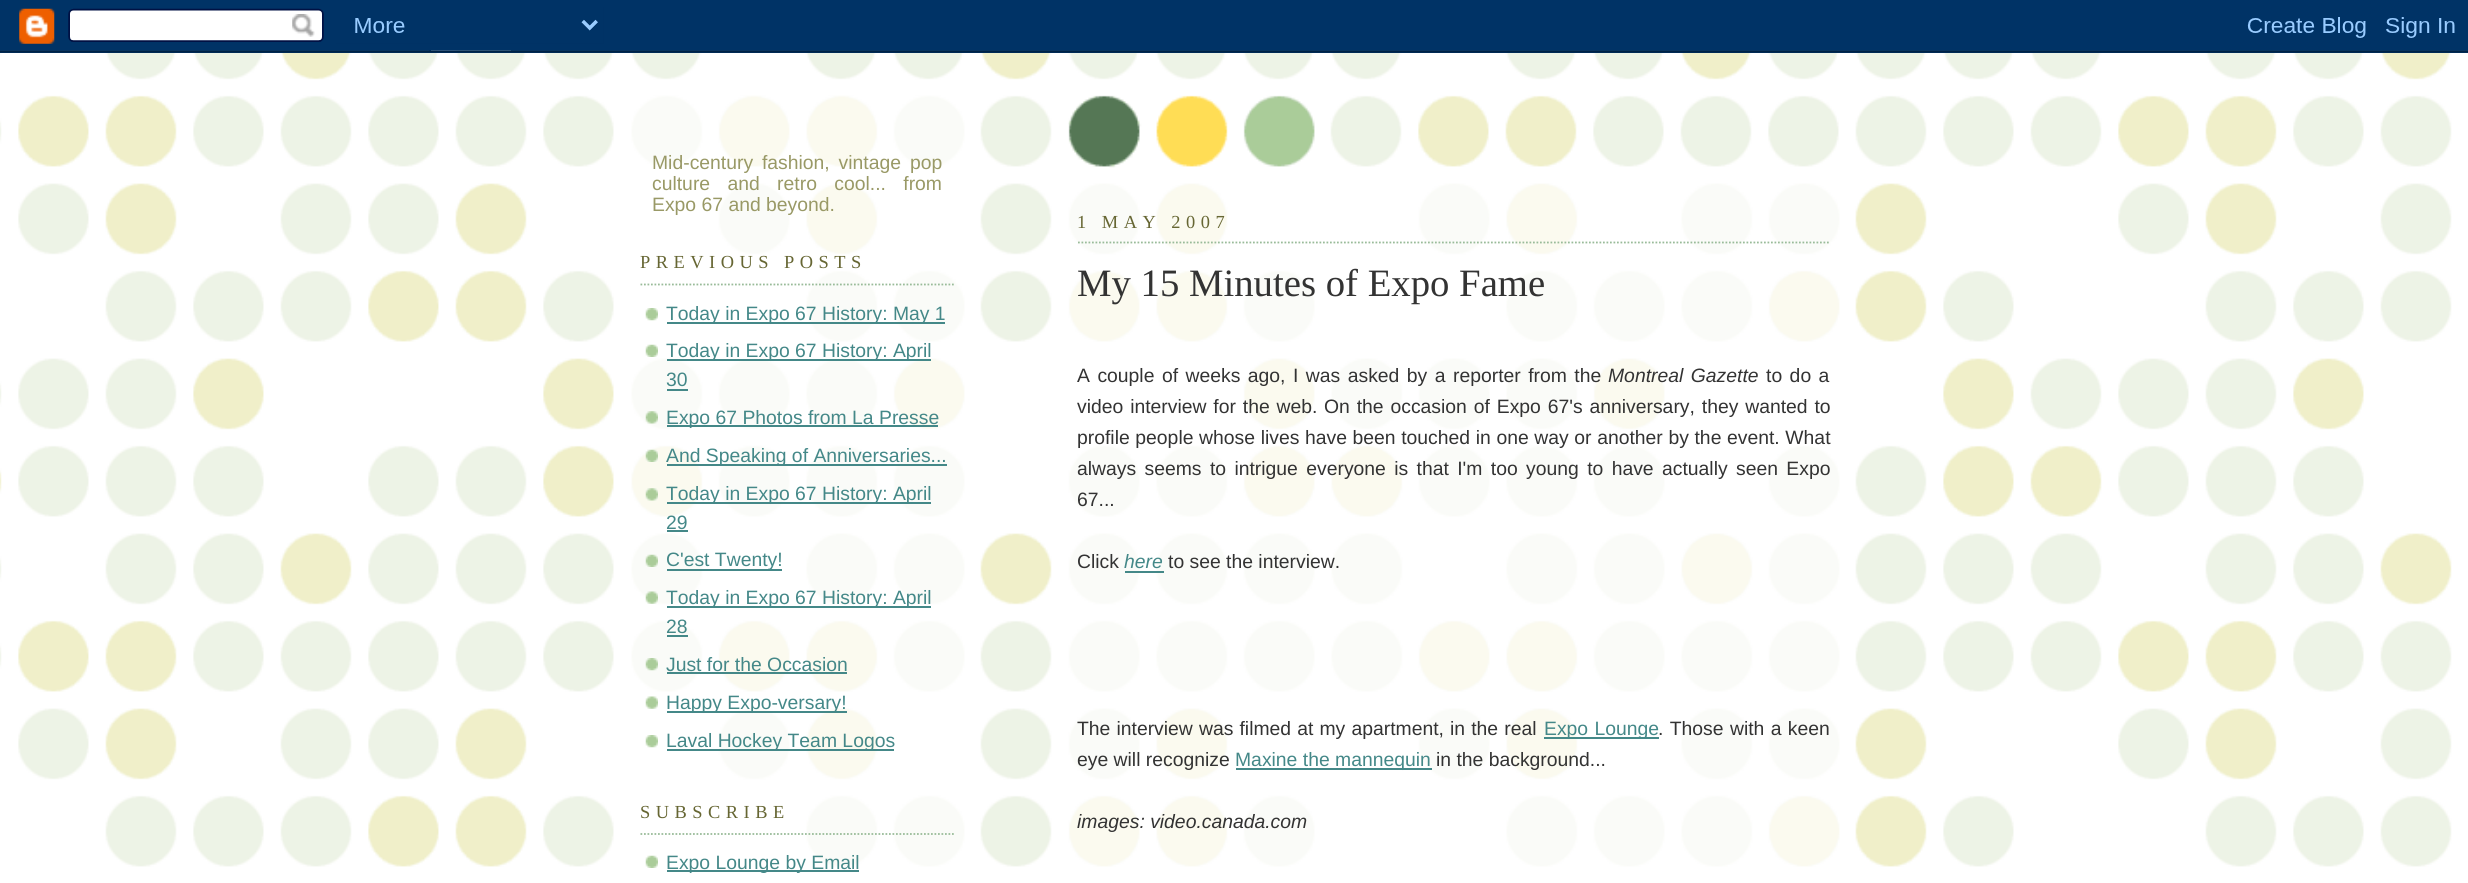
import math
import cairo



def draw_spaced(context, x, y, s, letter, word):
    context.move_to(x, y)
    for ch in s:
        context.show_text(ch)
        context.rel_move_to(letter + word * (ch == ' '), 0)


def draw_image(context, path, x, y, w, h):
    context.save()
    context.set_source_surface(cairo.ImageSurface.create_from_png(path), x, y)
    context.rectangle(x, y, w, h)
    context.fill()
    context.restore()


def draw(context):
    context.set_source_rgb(1, 1, 1)
    context.paint()
    draw_image(context, "images/1.png", 0, 50, 2452, 817)
    draw_image(context, "images/2.png", 0, 0, 2468, 53)
    draw_image(context, "images/3.png", 1068, 95, 247, 73)
    draw_image(context, "images/4.png", 630, 96, 335, 771)
    context.new_path()
    context.move_to(640.5, 284.5)
    context.line_to(955.5, 284.5)
    context.set_source_rgb(153 / 255, 187 / 255, 153 / 255)
    context.set_line_width(1.8)
    context.set_dash([1.75, 1.75])
    context.stroke()
    draw_image(context, "images/5.png", 645, 308, 13, 13)
    context.set_source_rgb(68 / 255, 136 / 255, 136 / 255)
    context.rectangle(667, 322, 278, 2)
    context.fill()
    draw_image(context, "images/6.png", 645, 344, 13, 13)
    context.rectangle(667, 359, 264, 2)
    context.fill()
    context.rectangle(667, 389, 21, 2)
    context.fill()
    draw_image(context, "images/7.png", 645, 411, 13, 13)
    context.rectangle(667, 425, 271, 2)
    context.fill()
    draw_image(context, "images/8.png", 645, 449, 13, 13)
    context.rectangle(667, 464, 280, 2)
    context.fill()
    draw_image(context, "images/9.png", 645, 488, 13, 13)
    context.rectangle(667, 502, 264, 2)
    context.fill()
    context.rectangle(667, 530, 21, 2)
    context.fill()
    draw_image(context, "images/10.png", 645, 554, 13, 13)
    context.rectangle(667, 569, 115, 2)
    context.fill()
    draw_image(context, "images/11.png", 645, 591, 13, 13)
    context.rectangle(667, 606, 264, 2)
    context.fill()
    context.rectangle(667, 635, 21, 2)
    context.fill()
    draw_image(context, "images/12.png", 645, 658, 13, 13)
    context.rectangle(667, 672, 180, 2)
    context.fill()
    draw_image(context, "images/13.png", 645, 696, 13, 13)
    context.rectangle(667, 711, 180, 2)
    context.fill()
    draw_image(context, "images/5.png", 645, 735, 13, 13)
    context.rectangle(667, 749, 227, 2)
    context.fill()
    context.new_path()
    context.move_to(640.5, 834)
    context.line_to(955.5, 834)
    context.set_source_rgb(153 / 255, 187 / 255, 153 / 255)
    context.stroke()
    draw_image(context, "images/6.png", 645, 855, 13, 13)
    context.set_source_rgb(68 / 255, 136 / 255, 136 / 255)
    context.rectangle(667, 870, 192, 2)
    context.fill()
    draw_image(context, "images/14.png", 1068, 183, 772, 684)
    context.new_path()
    context.move_to(1078, 242.5)
    context.line_to(1830.5, 242.5)
    context.set_source_rgb(153 / 255, 187 / 255, 153 / 255)
    context.stroke()
    context.set_source_rgb(68 / 255, 136 / 255, 136 / 255)
    context.rectangle(1125, 571, 39, 2)
    context.fill()
    context.rectangle(1544, 737, 115, 2)
    context.fill()
    context.rectangle(1236, 768, 196, 2)
    context.fill()
    context.select_font_face("Liberation Sans")
    context.set_font_size(19.35)
    context.set_source_rgb(153 / 255, 153 / 255, 102 / 255)
    draw_spaced(context, 652, 169, "Mid-century fashion, vintage pop", 0, 3.5)
    draw_spaced(context, 652, 190, "culture and retro cool... from", 0, 12)
    context.move_to(652, 211)
    context.show_text("Expo 67 and beyond.")
    context.select_font_face("Liberation Serif")
    context.set_font_size(18.4)
    context.set_source_rgb(102 / 255, 102 / 255, 51 / 255)
    draw_spaced(context, 640, 268, "PREVIOUS POSTS", 5.5, 0)
    context.select_font_face("Liberation Sans")
    context.set_font_size(19.35)
    context.set_source_rgb(68 / 255, 136 / 255, 136 / 255)
    context.move_to(666, 320)
    context.show_text("Today in Expo 67 History: May 1")
    context.move_to(666, 357)
    context.show_text("Today in Expo 67 History: April")
    context.move_to(666, 386)
    context.show_text("30")
    context.move_to(666, 424)
    context.show_text("Expo 67 Photos from La Presse")
    context.move_to(666, 462)
    context.show_text("And Speaking of Anniversaries...")
    context.move_to(666, 500)
    context.show_text("Today in Expo 67 History: April")
    context.move_to(666, 529)
    context.show_text("29")
    context.move_to(666, 566)
    context.show_text("C'est Twenty!")
    context.move_to(666, 604)
    context.show_text("Today in Expo 67 History: April")
    context.move_to(666, 633)
    context.show_text("28")
    context.move_to(666, 671)
    context.show_text("Just for the Occasion")
    context.move_to(666, 709)
    context.show_text("Happy Expo-versary!")
    context.move_to(666, 747)
    context.show_text("Laval Hockey Team Logos")
    context.select_font_face("Liberation Serif")
    context.set_font_size(18.4)
    context.set_source_rgb(102 / 255, 102 / 255, 51 / 255)
    draw_spaced(context, 640, 818, "SUBSCRIBE", 5.5, 0)
    context.select_font_face("Liberation Sans")
    context.set_font_size(19.35)
    context.set_source_rgb(68 / 255, 136 / 255, 136 / 255)
    context.move_to(666, 869)
    context.show_text("Expo Lounge by Email")
    context.select_font_face("Liberation Serif")
    context.set_font_size(18.4)
    context.set_source_rgb(102 / 255, 102 / 255, 51 / 255)
    draw_spaced(context, 1077, 228, "1 MAY 2007", 5.5, 0)
    context.set_font_size(38.75)
    context.set_source_rgb(51 / 255, 51 / 255, 51 / 255)
    context.move_to(1077, 296)
    context.show_text("My 15 Minutes of Expo Fame")
    context.select_font_face("Liberation Sans")
    context.set_font_size(19.35)
    draw_spaced(context, 1077, 382, "A couple of weeks ago, I was asked by a reporter from the", 0, 2.1)
    context.select_font_face("Liberation Sans", cairo.FontSlant.ITALIC)
    draw_spaced(context, 1608, 382, "Montreal Gazette", 0, 2.1)
    context.select_font_face("Liberation Sans")
    draw_spaced(context, 1766, 382, "to do a", 0, 2.1)
    draw_spaced(context, 1077, 413, "video interview for the web.", 0, 1.5)
    draw_spaced(context, 1324, 413, "On the occasion of Expo 67's anniversary, they wanted to", 0, 1.5)
    draw_spaced(context, 1077, 444, "profile people whose lives have been touched in one way or another by the event. What", 0, 0.25)
    draw_spaced(context, 1077, 475, "always seems to intrigue everyone is that I'm too young to have actually seen Expo", 0, 3)
    context.move_to(1077, 506)
    context.show_text("67...")
    context.move_to(1077, 568)
    context.show_text("Click")
    context.select_font_face("Liberation Sans", cairo.FontSlant.ITALIC)
    context.set_source_rgb(68 / 255, 136 / 255, 136 / 255)
    context.move_to(1124, 568)
    context.show_text("here")
    context.select_font_face("Liberation Sans")
    context.set_source_rgb(51 / 255, 51 / 255, 51 / 255)
    context.move_to(1168, 568)
    context.show_text("to see the interview.")
    draw_spaced(context, 1077, 735, "The interview was filmed at my apartment, in the real", 0, 0.75)
    context.set_source_rgb(68 / 255, 136 / 255, 136 / 255)
    draw_spaced(context, 1544, 735, "Expo Lounge", 0, 1)
    context.set_source_rgb(51 / 255, 51 / 255, 51 / 255)
    draw_spaced(context, 1658, 735, ". Those with a keen", 0, 1)
    context.move_to(1077, 766)
    context.show_text("eye will recognize")
    context.set_source_rgb(68 / 255, 136 / 255, 136 / 255)
    context.move_to(1235, 766)
    context.show_text("Maxine the mannequin")
    context.set_source_rgb(51 / 255, 51 / 255, 51 / 255)
    context.move_to(1436, 766)
    context.show_text("in the background...")
    context.select_font_face("Liberation Sans", cairo.FontSlant.ITALIC)
    context.move_to(1077, 828)
    context.show_text("images: video.canada.com")


surface = cairo.ImageSurface(cairo.Format.RGB24, 2468, 883)
context = cairo.Context(surface)
options = cairo.FontOptions()
options.set_hint_metrics(cairo.HintMetrics.OFF)
options.set_hint_style(cairo.HintStyle.NONE)
context.set_font_options(options)
context.set_miter_limit(4)
draw(context)
surface.write_to_png("out.png")
